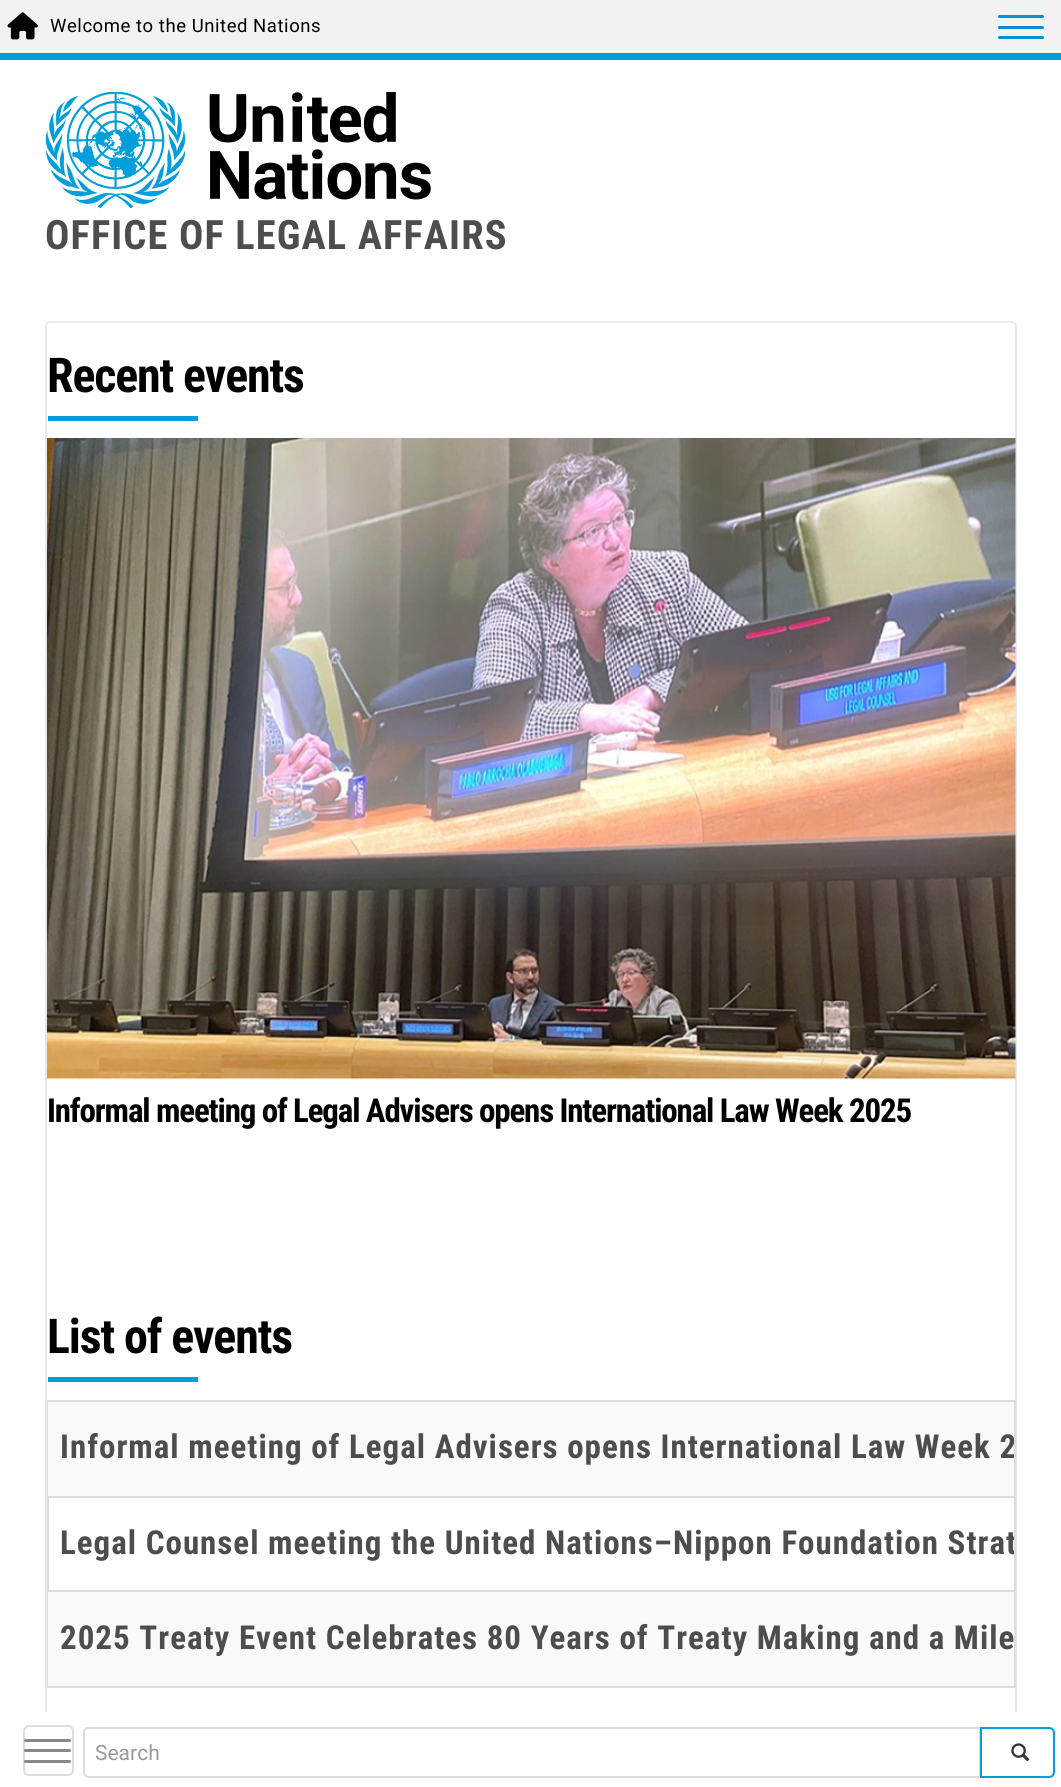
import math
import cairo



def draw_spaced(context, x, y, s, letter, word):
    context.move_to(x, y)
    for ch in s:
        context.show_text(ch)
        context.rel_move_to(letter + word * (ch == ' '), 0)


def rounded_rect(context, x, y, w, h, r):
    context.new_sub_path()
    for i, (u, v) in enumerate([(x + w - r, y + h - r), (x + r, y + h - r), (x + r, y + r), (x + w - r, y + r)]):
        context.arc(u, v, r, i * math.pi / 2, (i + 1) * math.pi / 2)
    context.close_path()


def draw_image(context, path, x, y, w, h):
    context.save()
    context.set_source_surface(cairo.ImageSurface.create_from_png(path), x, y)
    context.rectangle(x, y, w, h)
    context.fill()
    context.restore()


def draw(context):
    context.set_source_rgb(1, 1, 1)
    context.paint()
    context.set_source_rgb(242 / 255, 242 / 255, 242 / 255)
    context.rectangle(0, 0, 1061, 53)
    context.fill()
    context.set_source_rgb(0, 158 / 255, 219 / 255)
    context.rectangle(0, 53, 1061, 7)
    context.fill()
    draw_image(context, "images/1.png", 7, 12, 31, 28)
    context.set_source_rgb(0, 143 / 255, 213 / 255)
    rounded_rect(context, 998, 15, 46, 3, 1.5)
    context.fill()
    rounded_rect(context, 998, 26, 46, 3, 1.5)
    context.fill()
    rounded_rect(context, 998, 36, 46, 3, 1.5)
    context.fill()
    draw_image(context, "images/2.png", 45, 92, 141, 117)
    draw_image(context, "images/3.png", 209, 92, 222, 108)
    context.new_path()
    context.move_to(47, 323)
    context.line_to(49.5, 322)
    context.line_to(1012.5, 322)
    context.line_to(1015, 323)
    context.set_source_rgb(229 / 255, 230 / 255, 233 / 255)
    context.set_line_width(1.5)
    context.stroke()
    context.new_path()
    context.move_to(1015, 323)
    context.line_to(1016, 325.5)
    context.line_to(1016, 1786.5)
    context.line_to(1015, 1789)
    context.set_source_rgb(223 / 255, 224 / 255, 228 / 255)
    context.stroke()
    context.new_path()
    context.move_to(47, 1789)
    context.line_to(46, 1786.5)
    context.line_to(46, 325.5)
    context.line_to(47, 323)
    context.stroke()
    context.set_source_rgb(1, 1, 1)
    context.rectangle(45, 1712, 972, 75)
    context.fill()
    context.new_path()
    context.move_to(88, 1728)
    context.line_to(980, 1728)
    context.line_to(980, 1777)
    context.line_to(89, 1777)
    context.curve_to(86, 1777, 84, 1775, 84, 1772)
    context.line_to(84, 1732)
    context.curve_to(84, 1730, 86, 1728, 88, 1728)
    context.close_path()
    context.set_source_rgb(221 / 255, 221 / 255, 221 / 255)
    context.set_line_width(2)
    context.stroke()
    context.new_path()
    context.move_to(981, 1728)
    context.line_to(1049, 1728)
    context.curve_to(1052, 1728, 1054, 1730, 1054, 1733)
    context.line_to(1054, 1772)
    context.curve_to(1054, 1775, 1052, 1777, 1049, 1777)
    context.line_to(981, 1777)
    context.close_path()
    context.set_source_rgb(0, 158 / 255, 219 / 255)
    context.stroke()
    draw_image(context, "images/4.png", 1011, 1743, 19, 19)
    rounded_rect(context, 24, 1726, 49, 49, 5)
    context.set_source_rgb(221 / 255, 221 / 255, 221 / 255)
    context.stroke()
    context.set_source_rgb(136 / 255, 136 / 255, 136 / 255)
    rounded_rect(context, 24, 1739, 47, 3, 1.5)
    context.fill()
    rounded_rect(context, 24, 1749, 47, 3, 1.5)
    context.fill()
    rounded_rect(context, 24, 1760, 47, 3, 1.5)
    context.fill()
    context.set_source_rgb(0, 158 / 255, 219 / 255)
    context.rectangle(48, 416, 150, 5)
    context.fill()
    draw_image(context, "images/5.png", 47, 438, 969, 642)
    context.rectangle(48, 1377, 150, 5)
    context.fill()
    context.set_source_rgb(221 / 255, 221 / 255, 221 / 255)
    context.rectangle(1014, 1400, 2, 288)
    context.fill()
    context.rectangle(47, 1686, 969, 2)
    context.fill()
    context.rectangle(47, 1400, 2, 288)
    context.fill()
    context.set_source_rgb(249 / 255, 249 / 255, 249 / 255)
    context.rectangle(48, 1402, 966, 94)
    context.fill()
    context.set_source_rgb(221 / 255, 221 / 255, 221 / 255)
    context.rectangle(48, 1400, 966, 2)
    context.fill()
    context.rectangle(48, 1496, 966, 2)
    context.fill()
    context.set_source_rgb(249 / 255, 249 / 255, 249 / 255)
    context.rectangle(48, 1592, 966, 94)
    context.fill()
    context.set_source_rgb(221 / 255, 221 / 255, 221 / 255)
    context.rectangle(48, 1590, 966, 2)
    context.fill()
    context.select_font_face("Roboto")
    context.set_font_size(18.5)
    context.set_source_rgb(0, 0, 0)
    draw_spaced(context, 50, 32, "Welcome to the United Nations", 0.55, 0)
    context.select_font_face("Roboto Condensed", cairo.FontSlant.NORMAL, cairo.FontWeight.BOLD)
    context.set_font_size(40.5)
    context.set_source_rgb(77 / 255, 77 / 255, 77 / 255)
    draw_spaced(context, 45, 249, "OFFICE OF LEGAL AFFAIRS", 1.1, 0)
    context.select_font_face("Roboto")
    context.set_font_size(21)
    context.set_source_rgb(153 / 255, 153 / 255, 153 / 255)
    context.move_to(95, 1760)
    context.show_text("Search")
    context.select_font_face("Roboto Condensed", cairo.FontSlant.NORMAL, cairo.FontWeight.BOLD)
    context.set_font_size(48)
    context.set_source_rgb(0, 0, 0)
    draw_spaced(context, 47, 392, "Recent events", -1.15, 0)
    context.set_font_size(33)
    draw_spaced(context, 47, 1122, "Informal meeting of Legal Advisers opens International Law Week 2025", -1.15, 0)
    context.set_font_size(48)
    draw_spaced(context, 47, 1353, "List of events", -1.15, 0)
    context.save()
    context.rectangle(48, 1400, 966, 286)
    context.clip()
    context.set_font_size(33)
    context.set_source_rgb(77 / 255, 77 / 255, 77 / 255)
    draw_spaced(context, 60, 1458, "Informal meeting of Legal Advisers opens International Law Week 2", 1, 0)
    draw_spaced(context, 60, 1554, "Legal Counsel meeting the United Nations–Nippon Foundation Strat", 1, 0)
    context.restore()
    context.set_font_size(33)
    context.set_source_rgb(77 / 255, 77 / 255, 77 / 255)
    draw_spaced(context, 60, 1649, "2025 Treaty Event Celebrates 80 Years of Treaty Making and a Mile", 1, 0)


surface = cairo.ImageSurface(cairo.Format.RGB24, 1061, 1787)
context = cairo.Context(surface)
options = cairo.FontOptions()
options.set_hint_metrics(cairo.HintMetrics.OFF)
options.set_hint_style(cairo.HintStyle.NONE)
context.set_font_options(options)
context.set_miter_limit(4)
draw(context)
surface.write_to_png("out.png")
